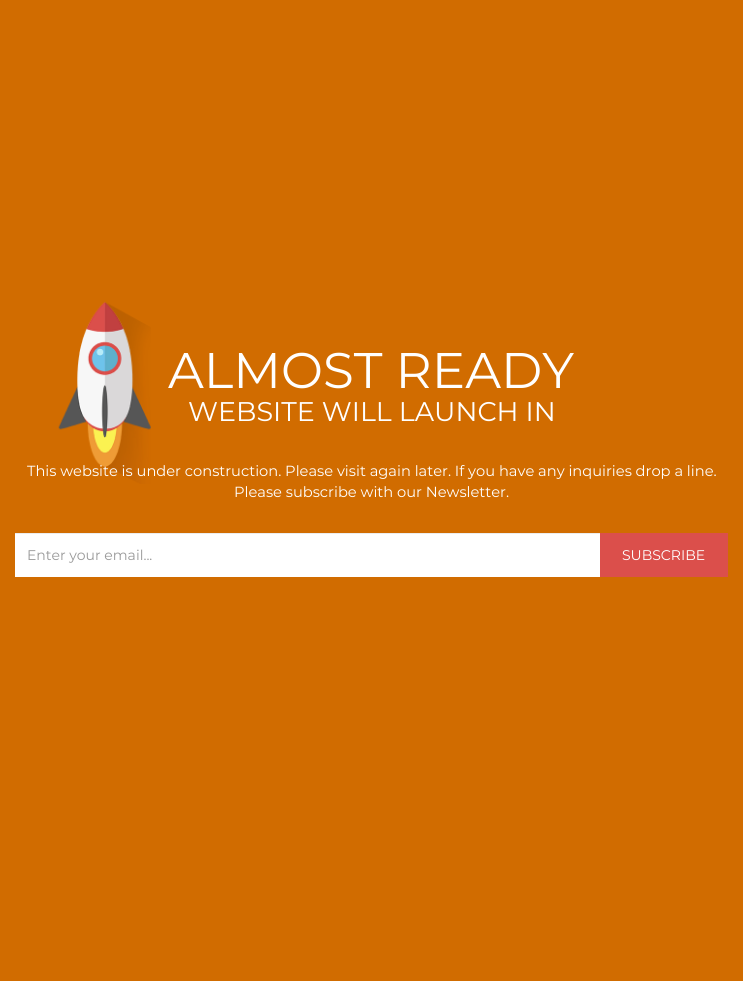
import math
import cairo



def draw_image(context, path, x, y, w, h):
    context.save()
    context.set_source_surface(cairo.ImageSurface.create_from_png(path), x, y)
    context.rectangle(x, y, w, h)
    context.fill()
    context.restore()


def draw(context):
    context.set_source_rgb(209 / 255, 108 / 255, 0)
    context.paint()
    draw_image(context, "images/1.png", 58, 301, 93, 183)
    context.set_source_rgb(1, 1, 1)
    context.rectangle(15, 534, 585, 43)
    context.fill()
    context.set_source_rgb(236 / 255, 236 / 255, 236 / 255)
    context.rectangle(15, 533, 585, 1)
    context.fill()
    context.set_source_rgb(219 / 255, 79 / 255, 75 / 255)
    context.rectangle(600, 533, 128, 44)
    context.fill()
    context.select_font_face("Montserrat")
    context.set_font_size(50)
    context.set_source_rgb(1, 1, 1)
    context.move_to(168, 388)
    context.show_text("ALMOST READY")
    context.set_font_size(27)
    context.move_to(188, 421)
    context.show_text("WEBSITE WILL LAUNCH IN")
    context.set_font_size(14.65)
    context.move_to(27, 476)
    context.show_text("This website is under construction. Please visit again later. If you have any inquiries drop a line.")
    context.move_to(234, 497)
    context.show_text("Please subscribe with our Newsletter.")
    context.set_font_size(14)
    context.set_source_rgb(153 / 255, 153 / 255, 153 / 255)
    context.move_to(27, 560)
    context.show_text("Enter your email...")
    context.set_source_rgb(1, 1, 1)
    context.move_to(622, 560)
    context.show_text("SUBSCRIBE")


surface = cairo.ImageSurface(cairo.Format.RGB24, 743, 981)
context = cairo.Context(surface)
options = cairo.FontOptions()
options.set_hint_metrics(cairo.HintMetrics.OFF)
options.set_hint_style(cairo.HintStyle.NONE)
context.set_font_options(options)
context.set_miter_limit(4)
draw(context)
surface.write_to_png("out.png")
